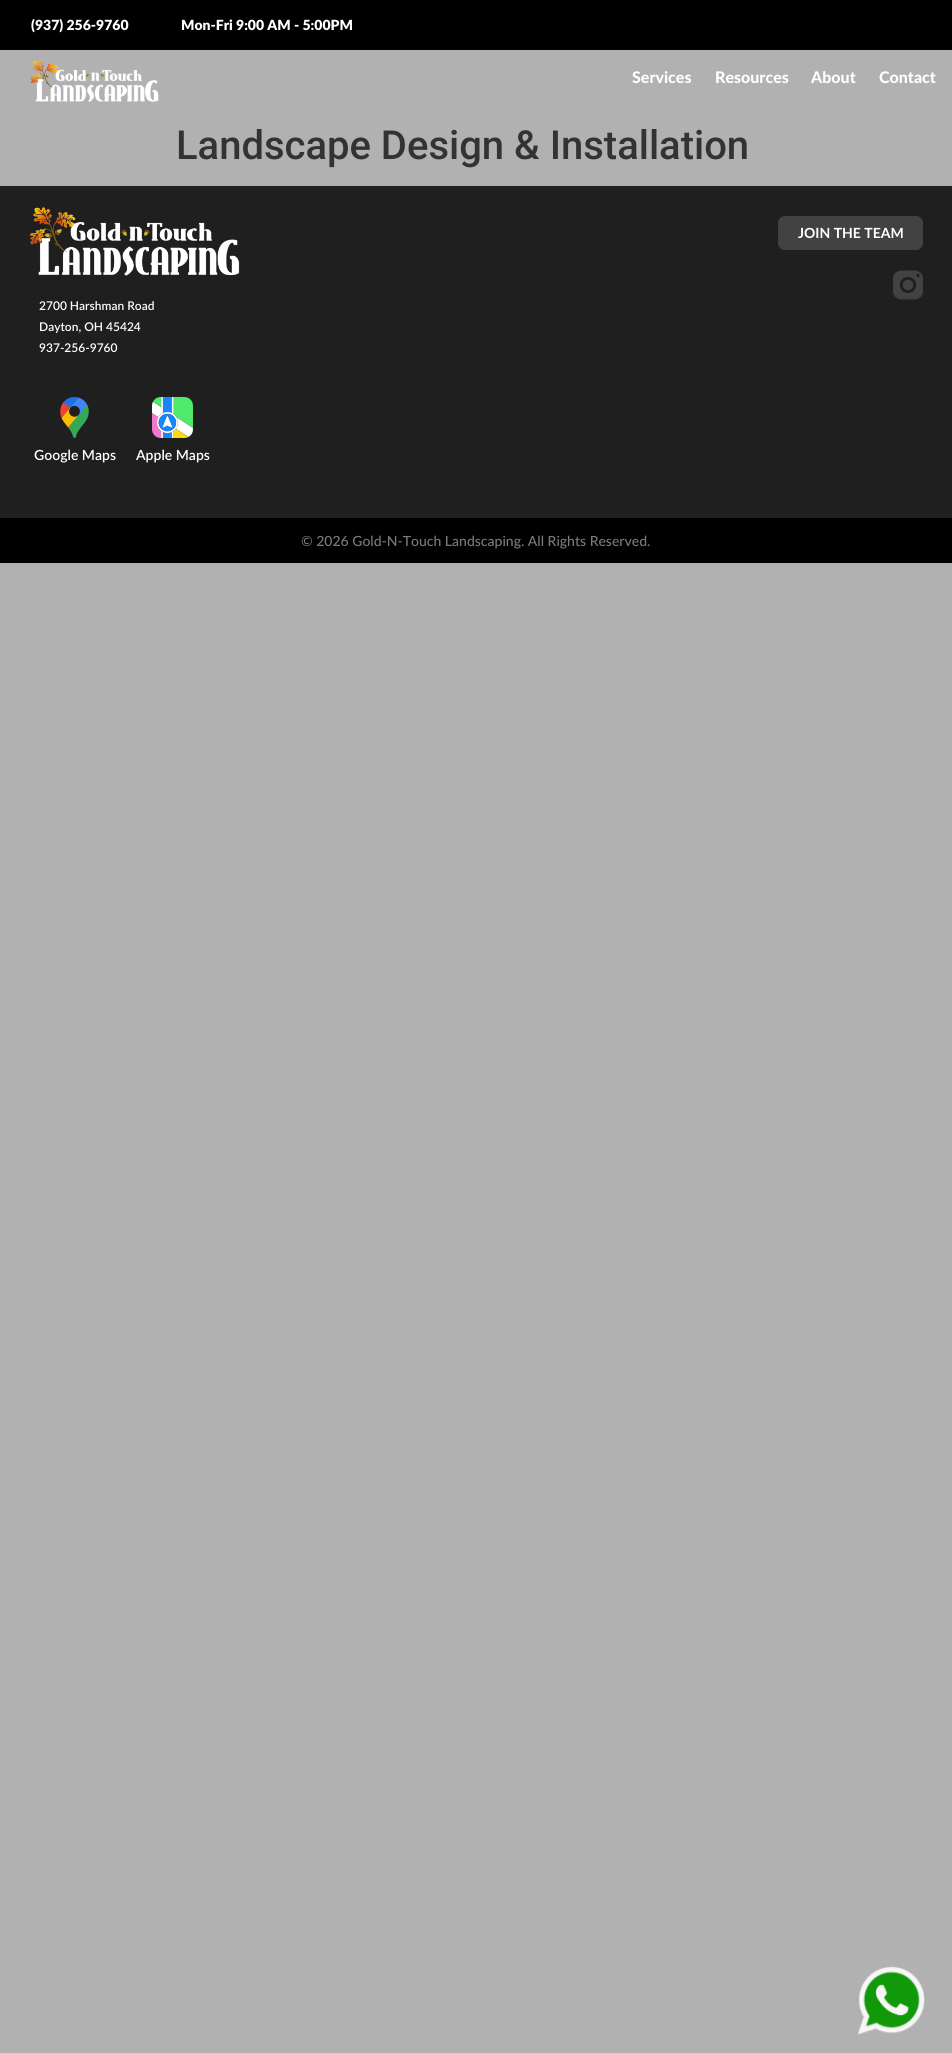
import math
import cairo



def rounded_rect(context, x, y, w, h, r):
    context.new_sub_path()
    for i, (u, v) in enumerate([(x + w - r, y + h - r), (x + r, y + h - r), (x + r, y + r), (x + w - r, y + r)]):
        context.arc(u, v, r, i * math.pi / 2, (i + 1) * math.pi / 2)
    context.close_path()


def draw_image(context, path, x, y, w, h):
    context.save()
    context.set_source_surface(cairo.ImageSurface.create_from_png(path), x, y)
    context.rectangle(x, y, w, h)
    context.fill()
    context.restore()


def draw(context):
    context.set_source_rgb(177 / 255, 177 / 255, 177 / 255)
    context.paint()
    context.set_source_rgb(0, 0, 0)
    context.rectangle(0, 0, 952, 50)
    context.fill()
    draw_image(context, "images/1.png", 30, 60, 129, 42)
    context.set_source_rgb(31 / 255, 31 / 255, 31 / 255)
    context.rectangle(0, 186, 952, 332)
    context.fill()
    context.set_source_rgb(66 / 255, 66 / 255, 66 / 255)
    rounded_rect(context, 778, 216, 145, 34, 7)
    context.fill()
    draw_image(context, "images/2.png", 893, 270, 30, 30)
    draw_image(context, "images/3.png", 29, 207, 211, 69)
    draw_image(context, "images/4.png", 60, 397, 29, 41)
    draw_image(context, "images/5.png", 152, 397, 41, 41)
    context.set_source_rgb(0, 0, 0)
    context.rectangle(0, 518, 952, 45)
    context.fill()
    draw_image(context, "images/6.png", 858, 1966, 67, 69)
    context.select_font_face("Lato ExtraBold")
    context.set_font_size(14)
    context.set_source_rgb(1, 1, 1)
    context.move_to(31, 30)
    context.show_text("(937) 256-9760")
    context.move_to(181, 30)
    context.show_text("Mon-Fri 9:00 AM - 5:00PM")
    context.select_font_face("Lato Black")
    context.set_font_size(16)
    context.move_to(632, 83)
    context.show_text("Services")
    context.move_to(715, 83)
    context.show_text("Resources")
    context.move_to(811, 83)
    context.show_text("About")
    context.move_to(879, 83)
    context.show_text("Contact")
    context.select_font_face("Roboto Medium")
    context.set_font_size(40)
    context.set_source_rgb(51 / 255, 51 / 255, 51 / 255)
    context.move_to(176, 159)
    context.show_text("Landscape Design & Installation")
    context.select_font_face("Lato", cairo.FontSlant.NORMAL, cairo.FontWeight.BOLD)
    context.set_font_size(14)
    context.set_source_rgb(1, 1, 1)
    context.move_to(798, 238)
    context.show_text("JOIN THE TEAM")
    context.select_font_face("Lato SemiBold")
    context.set_font_size(12)
    context.move_to(39, 310)
    context.show_text("2700 Harshman Road")
    context.move_to(39, 331)
    context.show_text("Dayton, OH 45424")
    context.move_to(39, 352)
    context.show_text("937-256-9760")
    context.set_font_size(14)
    context.move_to(34, 460)
    context.show_text("Google Maps")
    context.move_to(136, 460)
    context.show_text("Apple Maps")
    context.select_font_face("Lato Medium")
    context.set_source_rgb(122 / 255, 122 / 255, 122 / 255)
    context.move_to(301, 546)
    context.show_text("© 2026 Gold-N-Touch Landscaping. All Rights Reserved.")


surface = cairo.ImageSurface(cairo.Format.RGB24, 952, 2053)
context = cairo.Context(surface)
options = cairo.FontOptions()
options.set_hint_metrics(cairo.HintMetrics.OFF)
options.set_hint_style(cairo.HintStyle.NONE)
context.set_font_options(options)
context.set_miter_limit(4)
draw(context)
surface.write_to_png("out.png")
